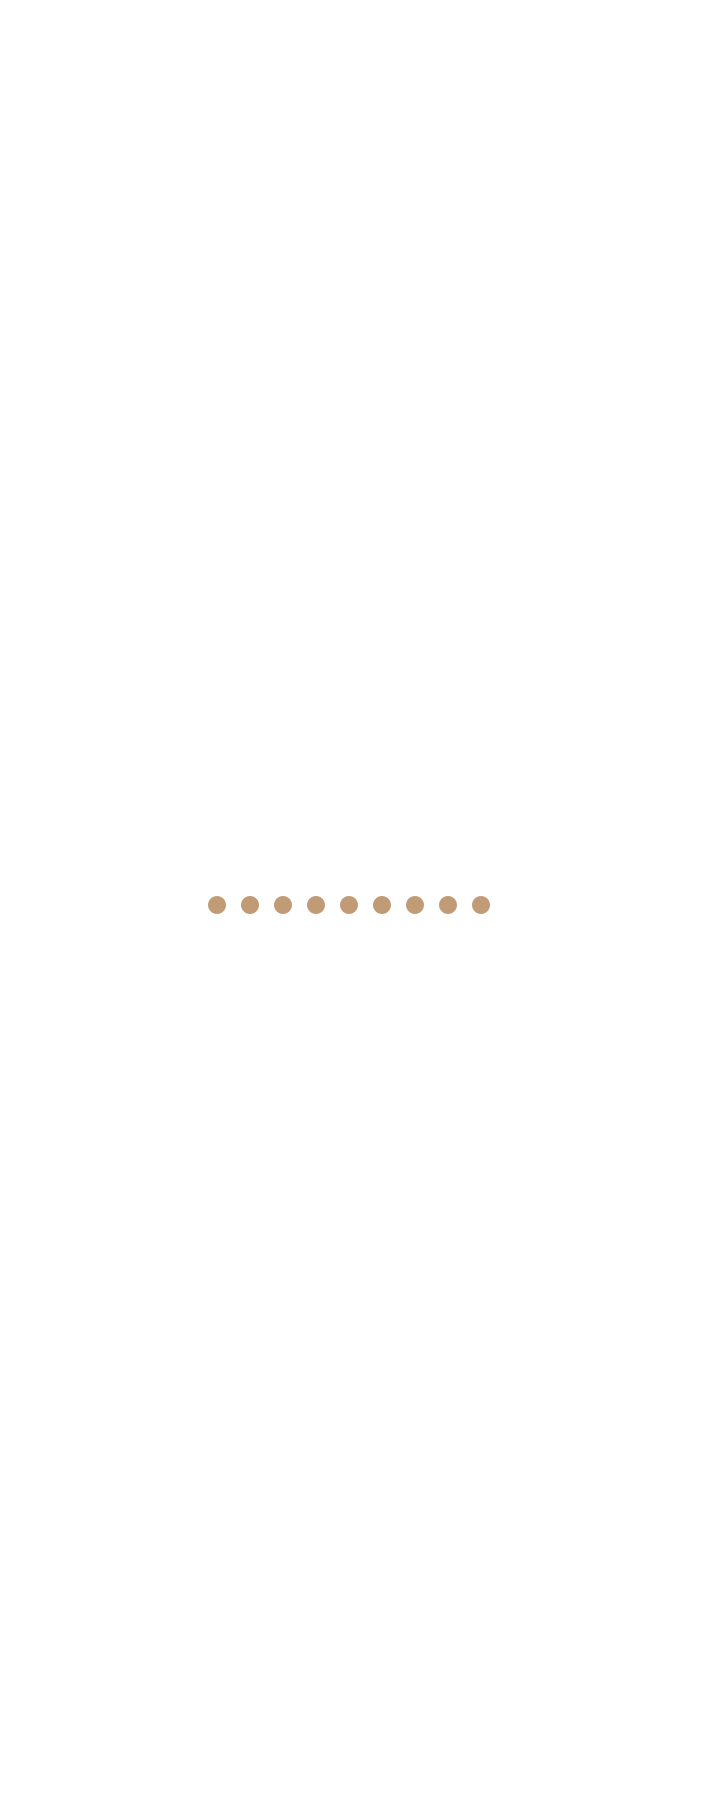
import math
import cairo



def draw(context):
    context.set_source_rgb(1, 1, 1)
    context.paint()
    context.set_source_rgb(193 / 255, 155 / 255, 118 / 255)
    context.arc(217, 905, 9, 0, 2 * math.pi)
    context.fill()
    context.arc(250, 905, 9, 0, 2 * math.pi)
    context.fill()
    context.arc(283, 905, 9, 0, 2 * math.pi)
    context.fill()
    context.arc(316, 905, 9, 0, 2 * math.pi)
    context.fill()
    context.arc(349, 905, 9, 0, 2 * math.pi)
    context.fill()
    context.arc(382, 905, 9, 0, 2 * math.pi)
    context.fill()
    context.arc(415, 905, 9, 0, 2 * math.pi)
    context.fill()
    context.arc(448, 905, 9, 0, 2 * math.pi)
    context.fill()
    context.arc(481, 905, 9, 0, 2 * math.pi)
    context.fill()


surface = cairo.ImageSurface(cairo.Format.RGB24, 715, 1811)
context = cairo.Context(surface)
options = cairo.FontOptions()
options.set_hint_metrics(cairo.HintMetrics.OFF)
options.set_hint_style(cairo.HintStyle.NONE)
context.set_font_options(options)
context.set_miter_limit(4)
draw(context)
surface.write_to_png("out.png")
